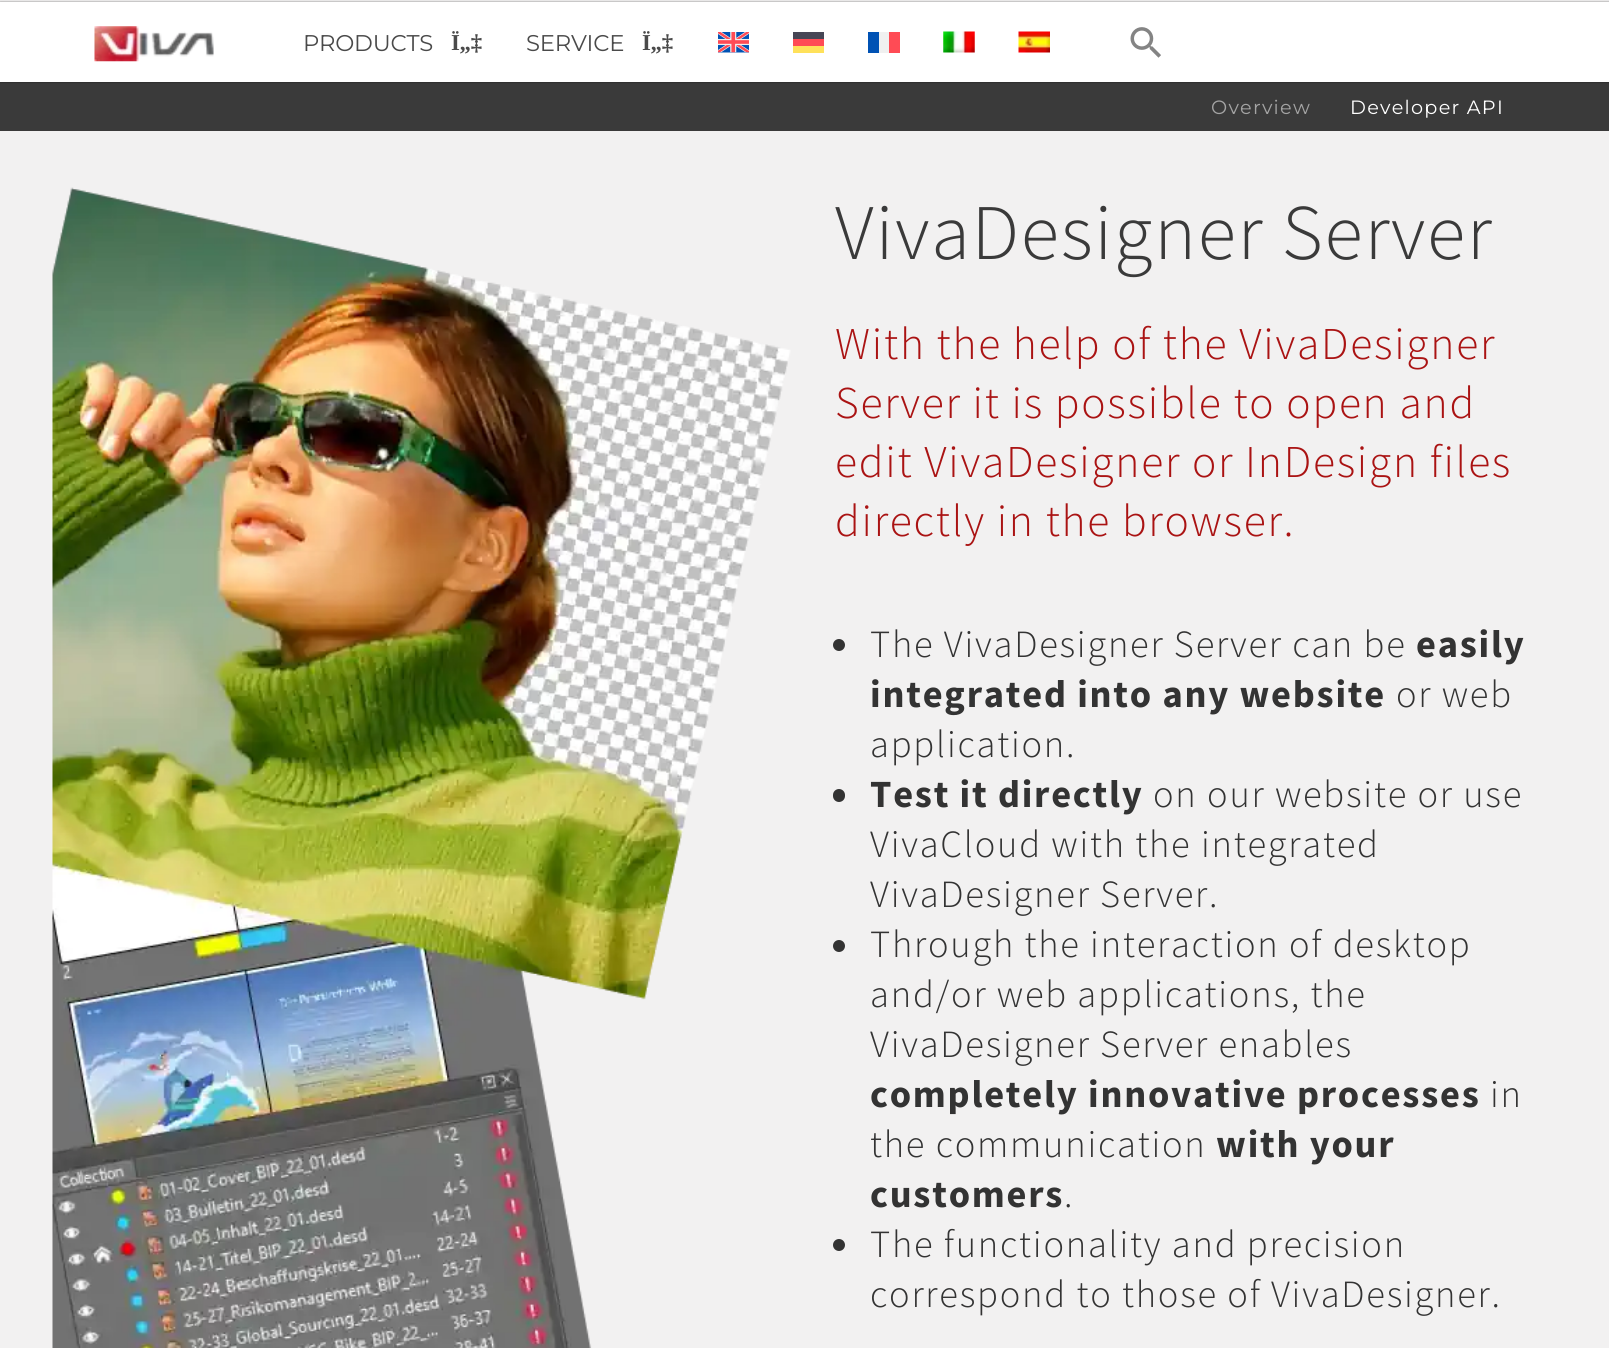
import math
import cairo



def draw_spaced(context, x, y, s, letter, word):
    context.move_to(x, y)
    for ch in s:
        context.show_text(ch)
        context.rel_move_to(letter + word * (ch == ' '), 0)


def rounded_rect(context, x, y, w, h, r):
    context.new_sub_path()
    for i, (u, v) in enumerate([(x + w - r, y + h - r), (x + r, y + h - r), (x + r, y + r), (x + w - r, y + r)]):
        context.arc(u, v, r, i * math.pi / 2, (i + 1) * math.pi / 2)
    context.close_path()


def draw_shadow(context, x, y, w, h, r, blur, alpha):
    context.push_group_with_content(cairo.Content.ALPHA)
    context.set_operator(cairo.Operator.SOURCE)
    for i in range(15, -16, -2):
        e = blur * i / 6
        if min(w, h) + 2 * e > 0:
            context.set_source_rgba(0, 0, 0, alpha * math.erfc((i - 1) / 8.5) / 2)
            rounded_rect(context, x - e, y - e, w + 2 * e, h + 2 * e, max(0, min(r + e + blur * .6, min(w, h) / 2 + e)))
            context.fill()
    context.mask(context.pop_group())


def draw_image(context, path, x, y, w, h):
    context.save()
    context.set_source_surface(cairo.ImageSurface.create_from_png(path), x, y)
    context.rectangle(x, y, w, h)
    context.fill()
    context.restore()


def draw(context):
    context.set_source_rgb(242 / 255, 241 / 255, 241 / 255)
    context.paint()
    context.set_source_rgb(58 / 255, 58 / 255, 58 / 255)
    context.rectangle(0, 82, 1609, 49)
    context.fill()
    context.set_source_rgb(0, 0, 0)
    draw_shadow(context, 0, 2, 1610, 80, 0, 1, 0.5)
    context.set_source_rgb(1, 1, 1)
    context.rectangle(0, 2, 1609, 80)
    context.fill()
    draw_image(context, "images/1.png", 94, 26, 120, 36)
    draw_image(context, "images/2.png", 718, 32, 31, 21)
    context.set_source_rgb(1, 75 / 255, 85 / 255)
    context.rectangle(793, 39, 31, 7)
    context.fill()
    context.set_source_rgb(1, 225 / 255, 90 / 255)
    context.rectangle(793, 46, 31, 7)
    context.fill()
    context.set_source_rgb(70 / 255, 70 / 255, 85 / 255)
    context.rectangle(793, 32, 31, 7)
    context.fill()
    context.set_source_rgb(240 / 255, 240 / 255, 240 / 255)
    context.rectangle(879, 32, 10, 21)
    context.fill()
    context.set_source_rgb(1, 75 / 255, 85 / 255)
    context.rectangle(889, 32, 11, 21)
    context.fill()
    context.set_source_rgb(0, 82 / 255, 180 / 255)
    context.rectangle(868, 32, 11, 21)
    context.fill()
    draw_image(context, "images/3.png", 943, 31, 32, 22)
    draw_image(context, "images/4.png", 1018, 31, 32, 22)
    draw_image(context, "images/5.png", 1130, 27, 31, 31)
    draw_image(context, "images/6.png", 52, 187, 739, 1161)
    context.set_source_rgb(51 / 255, 51 / 255, 51 / 255)
    context.arc(839, 645, 6, 0, 2 * math.pi)
    context.fill()
    rounded_rect(context, 833, 789, 12, 13, 6)
    context.fill()
    context.arc(839, 946, 6, 0, 2 * math.pi)
    context.fill()
    context.arc(839, 1245, 6, 0, 2 * math.pi)
    context.fill()
    context.select_font_face("Montserrat Thin")
    context.set_font_size(22.75)
    context.set_source_rgb(74 / 255, 74 / 255, 74 / 255)
    draw_spaced(context, 303, 51, "PRODUCTS", -0.25, 0)
    context.select_font_face("Liberation Serif", cairo.FontSlant.NORMAL, cairo.FontWeight.BOLD)
    draw_spaced(context, 451, 50, "Ï„‡", -0.25, 0)
    context.select_font_face("Montserrat Thin")
    draw_spaced(context, 526, 51, "SERVICE", -0.25, 0)
    context.select_font_face("Liberation Serif", cairo.FontSlant.NORMAL, cairo.FontWeight.BOLD)
    draw_spaced(context, 642, 50, "Ï„‡", -0.25, 0)
    context.select_font_face("Montserrat Thin")
    context.set_font_size(19.25)
    context.set_source_rgb(164 / 255, 164 / 255, 164 / 255)
    draw_spaced(context, 1211, 114, "Overview", 1.25, 0)
    context.set_source_rgb(1, 1, 1)
    draw_spaced(context, 1350, 114, "Developer API", 1.25, 0)
    context.select_font_face("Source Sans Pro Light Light")
    context.set_font_size(78.75)
    context.set_source_rgb(58 / 255, 58 / 255, 58 / 255)
    draw_spaced(context, 835, 259, "VivaDesigner Server", 1.75, 0)
    context.set_font_size(45.5)
    context.set_source_rgb(170 / 255, 19 / 255, 19 / 255)
    draw_spaced(context, 835, 359, "With the help of the VivaDesigner", 1.75, 0)
    draw_spaced(context, 835, 418, "Server it is possible to open and", 1.75, 0)
    draw_spaced(context, 835, 477, "edit VivaDesigner or InDesign files", 1.75, 0)
    draw_spaced(context, 835, 536, "directly in the browser.", 1.75, 0)
    context.set_font_size(38.5)
    context.set_source_rgb(51 / 255, 51 / 255, 51 / 255)
    draw_spaced(context, 870, 657, "The VivaDesigner Server can be", 1.75, 0)
    context.select_font_face("Source Sans Pro", cairo.FontSlant.NORMAL, cairo.FontWeight.BOLD)
    draw_spaced(context, 1416, 657, "easily", 1.75, 0)
    draw_spaced(context, 870, 707, "integrated into any website", 1.75, 0)
    context.select_font_face("Source Sans Pro Light Light")
    draw_spaced(context, 1396, 707, "or web", 1.75, 0)
    draw_spaced(context, 870, 757, "application.", 1.75, 0)
    context.select_font_face("Source Sans Pro", cairo.FontSlant.NORMAL, cairo.FontWeight.BOLD)
    draw_spaced(context, 870, 807, "Test it directly", 1.75, 0)
    context.select_font_face("Source Sans Pro Light Light")
    draw_spaced(context, 1153, 807, "on our website or use", 1.75, 0)
    draw_spaced(context, 870, 857, "VivaCloud with the integrated", 1.75, 0)
    draw_spaced(context, 870, 907, "VivaDesigner Server.", 1.75, 0)
    draw_spaced(context, 870, 957, "Through the interaction of desktop", 1.75, 0)
    draw_spaced(context, 870, 1007, "and/or web applications, the", 1.75, 0)
    draw_spaced(context, 870, 1057, "VivaDesigner Server enables", 1.75, 0)
    context.select_font_face("Source Sans Pro", cairo.FontSlant.NORMAL, cairo.FontWeight.BOLD)
    draw_spaced(context, 870, 1107, "completely innovative processes", 1.75, 0)
    context.select_font_face("Source Sans Pro Light Light")
    draw_spaced(context, 1490, 1107, "in", 1.75, 0)
    draw_spaced(context, 870, 1157, "the communication", 1.75, 0)
    context.select_font_face("Source Sans Pro", cairo.FontSlant.NORMAL, cairo.FontWeight.BOLD)
    draw_spaced(context, 1216, 1157, "with your", 1.75, 0)
    draw_spaced(context, 870, 1207, "customers", 1.75, 0)
    context.select_font_face("Source Sans Pro Light Light")
    draw_spaced(context, 1064, 1207, ".", 1.75, 0)
    draw_spaced(context, 870, 1257, "The functionality and precision", 1.75, 0)
    draw_spaced(context, 870, 1307, "correspond to those of VivaDesigner.", 1.75, 0)


surface = cairo.ImageSurface(cairo.Format.RGB24, 1609, 1348)
context = cairo.Context(surface)
options = cairo.FontOptions()
options.set_hint_metrics(cairo.HintMetrics.OFF)
options.set_hint_style(cairo.HintStyle.NONE)
context.set_font_options(options)
context.set_miter_limit(4)
draw(context)
surface.write_to_png("out.png")
